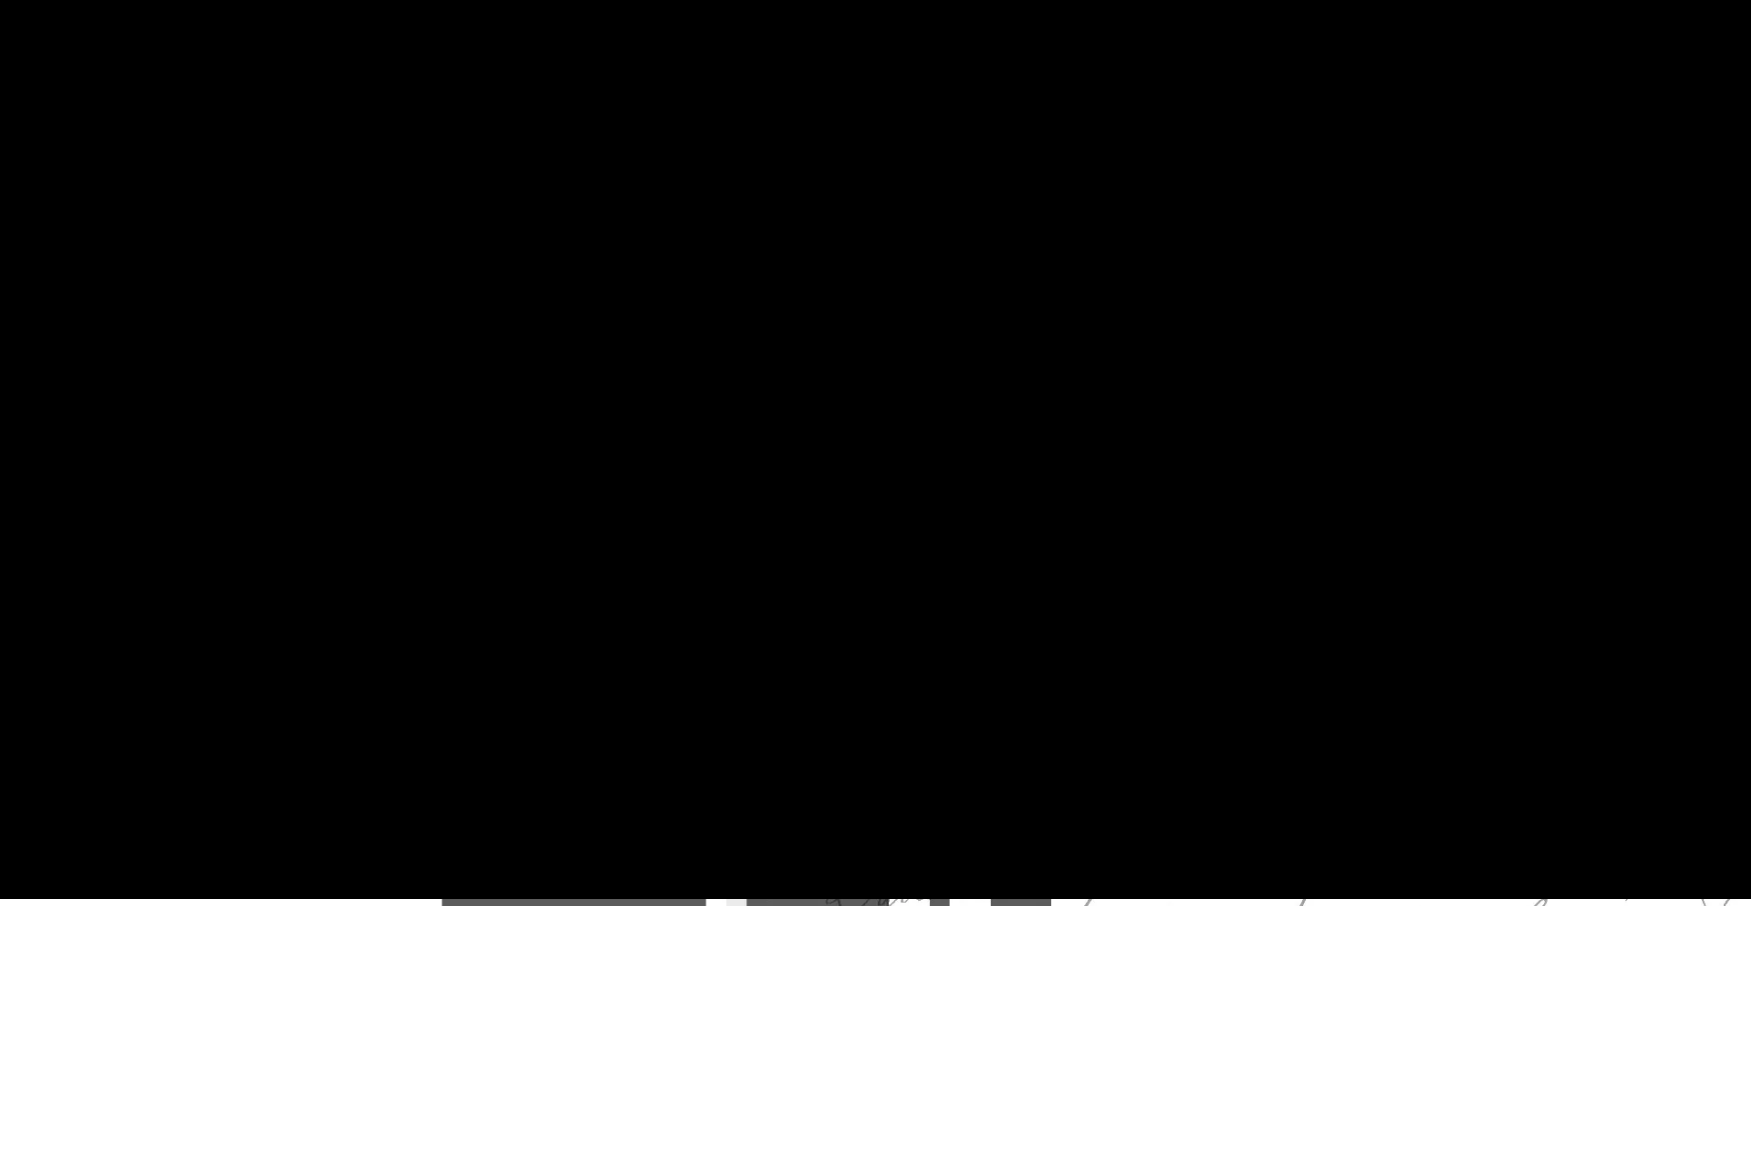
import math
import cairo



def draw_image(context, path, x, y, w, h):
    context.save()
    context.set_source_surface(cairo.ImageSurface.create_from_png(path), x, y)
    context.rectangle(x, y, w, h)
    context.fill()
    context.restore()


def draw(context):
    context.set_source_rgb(1, 1, 1)
    context.paint()
    context.set_source_rgb(0, 0, 0)
    context.rectangle(0, 0, 1751, 899)
    context.fill()
    draw_image(context, "images/1.png", 0, 899, 1751, 7)


surface = cairo.ImageSurface(cairo.Format.RGB24, 1751, 1173)
context = cairo.Context(surface)
options = cairo.FontOptions()
options.set_hint_metrics(cairo.HintMetrics.OFF)
options.set_hint_style(cairo.HintStyle.NONE)
context.set_font_options(options)
context.set_miter_limit(4)
draw(context)
surface.write_to_png("out.png")
